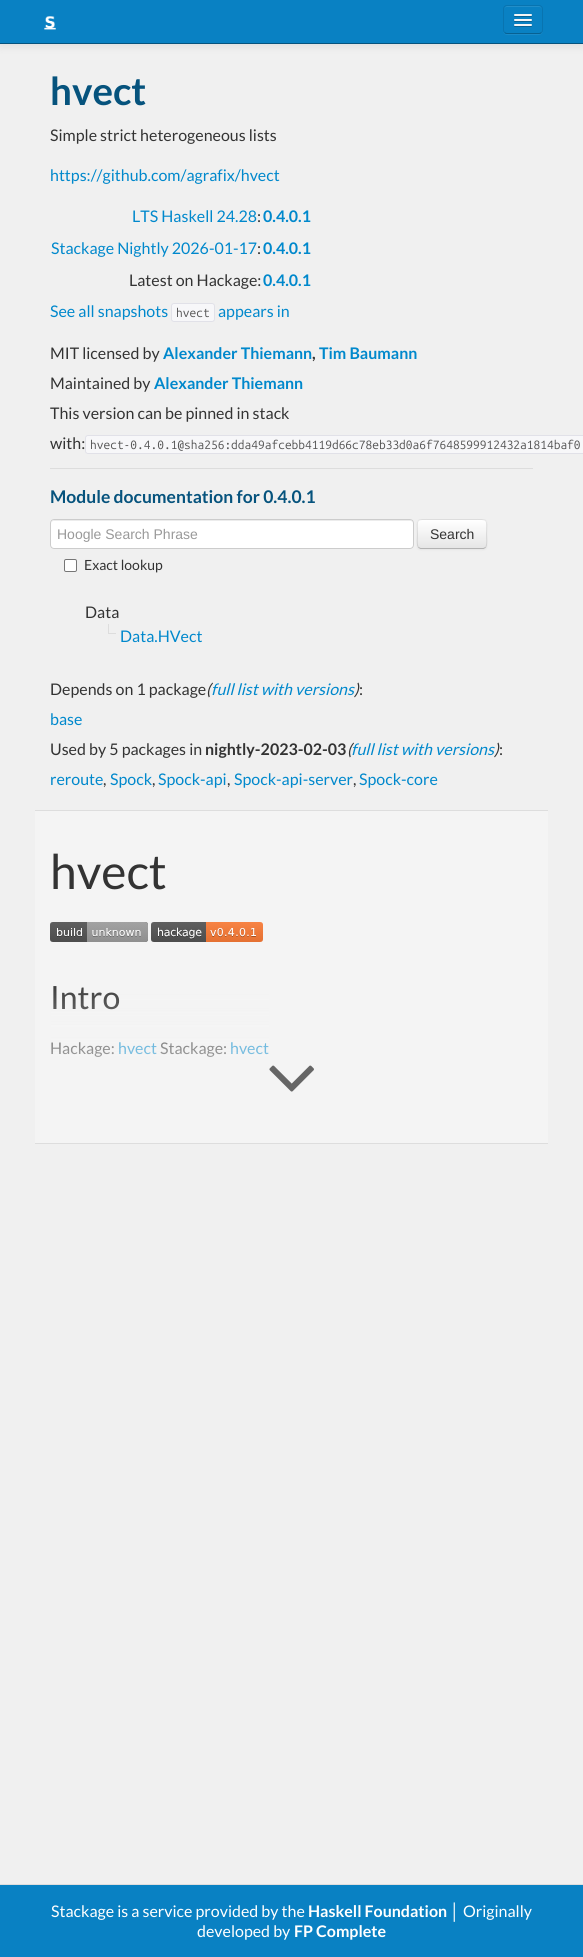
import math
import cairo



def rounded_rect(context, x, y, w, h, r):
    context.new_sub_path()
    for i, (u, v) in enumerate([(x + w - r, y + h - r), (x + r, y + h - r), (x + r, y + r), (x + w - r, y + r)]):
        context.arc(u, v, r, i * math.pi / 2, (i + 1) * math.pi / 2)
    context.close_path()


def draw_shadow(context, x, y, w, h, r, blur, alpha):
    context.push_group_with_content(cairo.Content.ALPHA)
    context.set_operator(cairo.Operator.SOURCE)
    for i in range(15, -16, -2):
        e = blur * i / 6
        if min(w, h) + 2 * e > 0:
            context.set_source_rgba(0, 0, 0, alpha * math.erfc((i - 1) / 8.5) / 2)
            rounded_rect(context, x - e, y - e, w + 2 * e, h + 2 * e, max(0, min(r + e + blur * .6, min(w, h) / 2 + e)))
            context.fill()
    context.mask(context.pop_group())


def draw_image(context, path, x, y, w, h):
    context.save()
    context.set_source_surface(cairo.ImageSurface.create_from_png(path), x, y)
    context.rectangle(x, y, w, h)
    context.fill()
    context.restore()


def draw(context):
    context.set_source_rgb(240 / 255, 240 / 255, 240 / 255)
    context.paint()
    context.set_source_rgb(0, 0, 0)
    draw_shadow(context, 0, 1, 583, 44, 0, 5, 0.1)
    context.set_source_rgb(9 / 255, 129 / 255, 195 / 255)
    context.rectangle(0, 0, 583, 43)
    context.fill()
    context.set_source_rgb(6 / 255, 83 / 255, 125 / 255)
    context.rectangle(0, 43, 583, 1)
    context.fill()
    draw_image(context, "images/1.png", 44, 16, 12, 14)
    context.set_source_rgb(27 / 255, 138 / 255, 200 / 255)
    context.new_path()
    context.move_to(503, 30)
    context.curve_to(503, 36, 508, 35, 512, 35)
    context.line_to(534, 35)
    context.curve_to(538, 35, 543, 36, 543, 30)
    context.curve_to(543, 32, 541, 34, 539, 34)
    context.line_to(507, 34)
    context.curve_to(505, 34, 503, 32, 503, 30)
    context.close_path()
    context.fill()
    context.set_source_rgb(9 / 255, 129 / 255, 195 / 255)
    rounded_rect(context, 503, 5, 40, 29, 4)
    context.fill()
    context.set_source_rgb(34 / 255, 142 / 255, 201 / 255)
    context.new_path()
    context.move_to(507, 7)
    context.line_to(539, 7)
    context.curve_to(541, 7, 542, 8, 542, 10)
    context.curve_to(542, 5, 538, 6, 533.5, 6)
    context.line_to(512.5, 6)
    context.curve_to(508, 6, 504, 5, 504, 10)
    context.curve_to(504, 8, 505, 7, 507, 7)
    context.close_path()
    context.fill()
    context.new_path()
    context.move_to(541.5, 32.5)
    context.curve_to(541, 33, 540, 33.5, 539, 33.5)
    context.line_to(507, 33.5)
    context.curve_to(506, 33.5, 505, 33, 504.5, 32.5)
    context.set_source_rgb(7 / 255, 97 / 255, 146 / 255)
    context.set_line_width(1)
    context.stroke()
    context.new_path()
    context.move_to(504.5, 32.5)
    context.curve_to(504, 32, 503.5, 31, 503.5, 30)
    context.line_to(503.5, 9)
    context.curve_to(503.5, 8, 504, 7, 504.5, 6.5)
    context.curve_to(505, 6, 506, 5.5, 507, 5.5)
    context.line_to(539, 5.5)
    context.curve_to(540, 5.5, 541, 6, 541.5, 6.5)
    context.curve_to(542, 7, 542.5, 8, 542.5, 9)
    context.line_to(542.5, 30)
    context.curve_to(542.5, 31, 542, 32, 541.5, 32.5)
    context.set_source_rgb(8 / 255, 116 / 255, 176 / 255)
    context.stroke()
    context.set_source_rgb(7 / 255, 97 / 255, 146 / 255)
    context.new_path()
    context.move_to(514, 15.5)
    context.curve_to(513, 17.5, 517.5, 17, 517.5, 17)
    context.line_to(528.5, 17)
    context.curve_to(528.5, 17, 533, 17.5, 532, 15.5)
    context.curve_to(531, 16.5, 524.5, 16, 523, 16)
    context.curve_to(521.5, 16, 515, 16.5, 514, 15.5)
    context.close_path()
    context.fill()
    context.set_source_rgb(245 / 255, 245 / 255, 245 / 255)
    rounded_rect(context, 514, 14, 18, 2, 1)
    context.fill()
    context.set_source_rgb(7 / 255, 97 / 255, 146 / 255)
    context.new_path()
    context.move_to(514, 20.5)
    context.curve_to(513, 22.5, 517.5, 22, 517.5, 22)
    context.line_to(528.5, 22)
    context.curve_to(528.5, 22, 533, 22.5, 532, 20.5)
    context.curve_to(531, 21.5, 524.5, 21, 523, 21)
    context.curve_to(521.5, 21, 515, 21.5, 514, 20.5)
    context.close_path()
    context.fill()
    context.set_source_rgb(245 / 255, 245 / 255, 245 / 255)
    rounded_rect(context, 514, 19, 18, 2, 1)
    context.fill()
    context.set_source_rgb(7 / 255, 97 / 255, 146 / 255)
    context.new_path()
    context.move_to(514, 25.5)
    context.curve_to(513, 27.5, 517.5, 27, 517.5, 27)
    context.line_to(528.5, 27)
    context.curve_to(528.5, 27, 533, 27.5, 532, 25.5)
    context.curve_to(531, 26.5, 524.5, 26, 523, 26)
    context.curve_to(521.5, 26, 515, 26.5, 514, 25.5)
    context.close_path()
    context.fill()
    context.set_source_rgb(245 / 255, 245 / 255, 245 / 255)
    rounded_rect(context, 514, 24, 18, 2, 1)
    context.fill()
    context.set_source_rgb(247 / 255, 247 / 255, 249 / 255)
    rounded_rect(context, 171.5, 303.5, 43, 18, 2.5)
    context.fill_preserve()
    context.set_source_rgb(225 / 255, 225 / 255, 232 / 255)
    context.stroke()
    context.set_source_rgb(247 / 255, 247 / 255, 249 / 255)
    rounded_rect(context, 85.5, 435.5, 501, 18, 2.5)
    context.fill_preserve()
    context.set_source_rgb(225 / 255, 225 / 255, 232 / 255)
    context.stroke()
    context.set_source_rgb(221 / 255, 221 / 255, 221 / 255)
    context.rectangle(50, 468, 483, 1)
    context.fill()
    context.set_source_rgb(1, 1, 1)
    rounded_rect(context, 50, 519, 364, 30, 4)
    context.fill()
    context.set_source_rgb(236 / 255, 236 / 255, 236 / 255)
    context.new_path()
    context.move_to(54, 521)
    context.line_to(410, 521)
    context.curve_to(412, 521, 413, 522, 413, 524)
    context.curve_to(413, 522, 412, 520, 410, 520)
    context.line_to(54, 520)
    context.line_to(52, 521)
    context.line_to(51, 524)
    context.curve_to(51, 522, 52, 521, 54, 521)
    context.close_path()
    context.fill()
    rounded_rect(context, 50.5, 519.5, 363, 29, 3.5)
    context.set_source_rgb(204 / 255, 204 / 255, 204 / 255)
    context.stroke()
    context.set_source_rgb(0, 0, 0)
    draw_shadow(context, 417, 520, 70, 30, 4, 1, 0.05)
    context.set_source_rgb(245 / 255, 245 / 255, 245 / 255)
    rounded_rect(context, 417, 519, 70, 30, 4)
    context.fill()
    context.save()
    rounded_rect(context, 417, 519, 70, 30, 4)
    context.clip()
    gradient = cairo.LinearGradient(452, 520, 452, 548)
    gradient.add_color_stop_rgba(0, 1, 1, 1, 1)
    gradient.add_color_stop_rgba(1, 230 / 255, 230 / 255, 230 / 255, 1)
    context.set_source(gradient)
    context.rectangle(417, 520, 70, 28)
    context.fill()
    context.restore()
    context.new_path()
    context.move_to(485.5, 547.5)
    context.line_to(483.5, 548.5)
    context.line_to(420.5, 548.5)
    context.line_to(418.5, 547.5)
    context.set_source_rgb(179 / 255, 179 / 255, 179 / 255)
    context.stroke()
    context.new_path()
    context.move_to(418.5, 547.5)
    context.curve_to(416.5, 545.5, 417.5, 537, 417.5, 534)
    context.curve_to(417.5, 518, 415, 519.5, 431.5, 519.5)
    context.line_to(472.5, 519.5)
    context.curve_to(489, 519.5, 486.5, 518, 486.5, 534)
    context.curve_to(486.5, 537, 487.5, 545.5, 485.5, 547.5)
    context.set_source_rgba(0, 0, 0, 0.1)
    context.stroke()
    context.set_source_rgb(1, 1, 1)
    rounded_rect(context, 64.5, 559.5, 12, 12, 1.5)
    context.fill_preserve()
    context.set_source_rgb(118 / 255, 118 / 255, 118 / 255)
    context.stroke()
    context.set_source_rgb(221 / 255, 221 / 255, 221 / 255)
    context.rectangle(108, 624, 1, 9)
    context.fill()
    context.rectangle(108, 633, 8, 1)
    context.fill()
    context.set_source_rgb(244 / 255, 244 / 255, 244 / 255)
    context.rectangle(35, 811, 513, 332)
    context.fill()
    context.set_source_rgb(221 / 255, 221 / 255, 221 / 255)
    context.rectangle(35, 810, 513, 1)
    context.fill()
    context.rectangle(35, 1143, 513, 1)
    context.fill()
    draw_image(context, "images/2.png", 50, 922, 98, 20)
    draw_image(context, "images/3.png", 151, 922, 112, 20)
    draw_image(context, "images/4.png", 269, 1065, 45, 27)
    context.set_source_rgb(9 / 255, 129 / 255, 195 / 255)
    context.rectangle(0, 1885, 583, 72)
    context.fill()
    context.set_source_rgb(221 / 255, 221 / 255, 221 / 255)
    context.rectangle(0, 1884, 583, 1)
    context.fill()
    context.select_font_face("Lato", cairo.FontSlant.NORMAL, cairo.FontWeight.BOLD)
    context.set_font_size(38.5)
    context.set_source_rgb(6 / 255, 83 / 255, 125 / 255)
    context.move_to(50, 105)
    context.show_text("hvect")
    context.select_font_face("Lato")
    context.set_font_size(16)
    context.set_source_rgb(51 / 255, 51 / 255, 51 / 255)
    context.move_to(50, 141)
    context.show_text("Simple strict heterogeneous lists")
    context.set_source_rgb(0, 136 / 255, 204 / 255)
    context.move_to(50, 181)
    context.show_text("https://github.com/agrafix/hvect")
    context.move_to(132, 222)
    context.show_text("LTS Haskell 24.28")
    context.set_source_rgb(51 / 255, 51 / 255, 51 / 255)
    context.move_to(257, 222)
    context.show_text(":")
    context.select_font_face("Lato", cairo.FontSlant.NORMAL, cairo.FontWeight.BOLD)
    context.set_source_rgb(0, 136 / 255, 204 / 255)
    context.move_to(263, 222)
    context.show_text("0.4.0.1")
    context.select_font_face("Lato")
    context.move_to(51, 254)
    context.show_text("Stackage Nightly 2026-01-17")
    context.set_source_rgb(51 / 255, 51 / 255, 51 / 255)
    context.move_to(257, 254)
    context.show_text(":")
    context.select_font_face("Lato", cairo.FontSlant.NORMAL, cairo.FontWeight.BOLD)
    context.set_source_rgb(0, 136 / 255, 204 / 255)
    context.move_to(263, 254)
    context.show_text("0.4.0.1")
    context.select_font_face("Lato")
    context.set_source_rgb(51 / 255, 51 / 255, 51 / 255)
    context.move_to(129, 286)
    context.show_text("Latest on Hackage:")
    context.select_font_face("Lato", cairo.FontSlant.NORMAL, cairo.FontWeight.BOLD)
    context.set_source_rgb(0, 136 / 255, 204 / 255)
    context.move_to(263, 286)
    context.show_text("0.4.0.1")
    context.select_font_face("Lato")
    context.move_to(50, 317)
    context.show_text("See all snapshots")
    context.select_font_face("Ubuntu Mono")
    context.set_font_size(12)
    context.set_source_rgb(85 / 255, 85 / 255, 85 / 255)
    context.move_to(176, 317)
    context.show_text("hvect")
    context.select_font_face("Lato")
    context.set_font_size(16)
    context.set_source_rgb(0, 136 / 255, 204 / 255)
    context.move_to(218, 317)
    context.show_text("appears in")
    context.set_source_rgb(51 / 255, 51 / 255, 51 / 255)
    context.move_to(50, 359)
    context.show_text("MIT licensed by")
    context.select_font_face("Lato", cairo.FontSlant.NORMAL, cairo.FontWeight.BOLD)
    context.set_source_rgb(0, 136 / 255, 204 / 255)
    context.move_to(163, 359)
    context.show_text("Alexander Thiemann")
    context.set_source_rgb(51 / 255, 51 / 255, 51 / 255)
    context.move_to(312, 359)
    context.show_text(",")
    context.set_source_rgb(0, 136 / 255, 204 / 255)
    context.move_to(319, 359)
    context.show_text("Tim Baumann")
    context.select_font_face("Lato")
    context.set_source_rgb(51 / 255, 51 / 255, 51 / 255)
    context.move_to(50, 389)
    context.show_text("Maintained by")
    context.select_font_face("Lato", cairo.FontSlant.NORMAL, cairo.FontWeight.BOLD)
    context.set_source_rgb(0, 136 / 255, 204 / 255)
    context.move_to(154, 389)
    context.show_text("Alexander Thiemann")
    context.select_font_face("Lato")
    context.set_source_rgb(51 / 255, 51 / 255, 51 / 255)
    context.move_to(50, 419)
    context.show_text("This version can be pinned in stack")
    context.move_to(50, 449)
    context.show_text("with:")
    context.select_font_face("Ubuntu Mono")
    context.set_font_size(12)
    context.set_source_rgb(85 / 255, 85 / 255, 85 / 255)
    context.move_to(90, 449)
    context.show_text("hvect-0.4.0.1@sha256:dda49afcebb4119d66c78eb33d0a6f7648599912432a1814baf0")
    context.select_font_face("Lato", cairo.FontSlant.NORMAL, cairo.FontWeight.BOLD)
    context.set_font_size(17.5)
    context.set_source_rgb(6 / 255, 83 / 255, 125 / 255)
    context.move_to(50, 503)
    context.show_text("Module documentation for 0.4.0.1")
    context.select_font_face("Liberation Sans")
    context.set_font_size(14)
    context.set_source_rgb(153 / 255, 153 / 255, 153 / 255)
    context.move_to(57, 539)
    context.show_text("Hoogle Search Phrase")
    context.set_source_rgb(51 / 255, 51 / 255, 51 / 255)
    context.move_to(430, 539)
    context.show_text("Search")
    context.select_font_face("Lato")
    context.move_to(84, 570)
    context.show_text("Exact lookup")
    context.set_font_size(16)
    context.move_to(85, 618)
    context.show_text("Data")
    context.set_source_rgb(0, 136 / 255, 204 / 255)
    context.move_to(120, 642)
    context.show_text("Data.HVect")
    context.set_source_rgb(51 / 255, 51 / 255, 51 / 255)
    context.move_to(50, 695)
    context.show_text("Depends on 1 package")
    context.select_font_face("Lato", cairo.FontSlant.ITALIC)
    context.move_to(206, 695)
    context.show_text("(")
    context.set_source_rgb(0, 136 / 255, 204 / 255)
    context.move_to(211, 695)
    context.show_text("full list with versions")
    context.set_source_rgb(51 / 255, 51 / 255, 51 / 255)
    context.move_to(354, 695)
    context.show_text(")")
    context.select_font_face("Lato")
    context.move_to(359, 695)
    context.show_text(":")
    context.set_source_rgb(0, 136 / 255, 204 / 255)
    context.move_to(50, 725)
    context.show_text("base")
    context.set_source_rgb(51 / 255, 51 / 255, 51 / 255)
    context.move_to(50, 755)
    context.show_text("Used by 5 packages in")
    context.select_font_face("Lato", cairo.FontSlant.NORMAL, cairo.FontWeight.BOLD)
    context.move_to(205, 755)
    context.show_text("nightly-2023-02-03")
    context.select_font_face("Lato", cairo.FontSlant.ITALIC)
    context.move_to(347, 755)
    context.show_text("(")
    context.set_source_rgb(0, 136 / 255, 204 / 255)
    context.move_to(351, 755)
    context.show_text("full list with versions")
    context.set_source_rgb(51 / 255, 51 / 255, 51 / 255)
    context.move_to(494, 755)
    context.show_text(")")
    context.select_font_face("Lato")
    context.move_to(499, 755)
    context.show_text(":")
    context.set_source_rgb(0, 136 / 255, 204 / 255)
    context.move_to(50, 785)
    context.show_text("reroute")
    context.set_source_rgb(51 / 255, 51 / 255, 51 / 255)
    context.move_to(103, 785)
    context.show_text(",")
    context.set_source_rgb(0, 136 / 255, 204 / 255)
    context.move_to(110, 785)
    context.show_text("Spock")
    context.set_source_rgb(51 / 255, 51 / 255, 51 / 255)
    context.move_to(152, 785)
    context.show_text(",")
    context.set_source_rgb(0, 136 / 255, 204 / 255)
    context.move_to(158, 785)
    context.show_text("Spock-api")
    context.set_source_rgb(51 / 255, 51 / 255, 51 / 255)
    context.move_to(227, 785)
    context.show_text(",")
    context.set_source_rgb(0, 136 / 255, 204 / 255)
    context.move_to(234, 785)
    context.show_text("Spock-api-server")
    context.set_source_rgb(51 / 255, 51 / 255, 51 / 255)
    context.move_to(353, 785)
    context.show_text(",")
    context.set_source_rgb(0, 136 / 255, 204 / 255)
    context.move_to(359, 785)
    context.show_text("Spock-core")
    context.set_font_size(48)
    context.set_source_rgb(51 / 255, 51 / 255, 51 / 255)
    context.move_to(50, 889)
    context.show_text("hvect")
    context.set_font_size(32)
    context.move_to(50, 1009)
    context.show_text("Intro")
    context.set_font_size(16)
    context.move_to(50, 1054)
    context.show_text("Hackage:")
    context.set_source_rgb(0, 136 / 255, 204 / 255)
    context.move_to(118, 1054)
    context.show_text("hvect")
    context.set_source_rgb(51 / 255, 51 / 255, 51 / 255)
    context.move_to(160, 1054)
    context.show_text("Stackage:")
    context.set_source_rgb(0, 136 / 255, 204 / 255)
    context.move_to(230, 1054)
    context.show_text("hvect")
    gradient = cairo.LinearGradient(292, 977, 292, 1127)
    gradient.add_color_stop_rgba(0, 244 / 255, 244 / 255, 244 / 255, 0)
    gradient.add_color_stop_rgba(1, 244 / 255, 244 / 255, 244 / 255, 1)
    context.set_source(gradient)
    context.rectangle(51, 986, 218, 71)
    context.fill()
    context.set_source_rgb(1, 1, 1)
    context.move_to(51, 1917)
    context.show_text("Stackage is a service provided by the")
    context.select_font_face("Lato", cairo.FontSlant.NORMAL, cairo.FontWeight.BOLD)
    context.move_to(308, 1917)
    context.show_text("Haskell Foundation")
    context.select_font_face("Liberation Sans")
    context.move_to(450, 1917)
    context.show_text("│")
    context.select_font_face("Lato")
    context.move_to(463, 1917)
    context.show_text("Originally")
    context.move_to(197, 1937)
    context.show_text("developed by")
    context.select_font_face("Lato", cairo.FontSlant.NORMAL, cairo.FontWeight.BOLD)
    context.move_to(294, 1937)
    context.show_text("FP Complete")


surface = cairo.ImageSurface(cairo.Format.RGB24, 583, 1957)
context = cairo.Context(surface)
options = cairo.FontOptions()
options.set_hint_metrics(cairo.HintMetrics.OFF)
options.set_hint_style(cairo.HintStyle.NONE)
context.set_font_options(options)
context.set_miter_limit(4)
draw(context)
surface.write_to_png("out.png")
